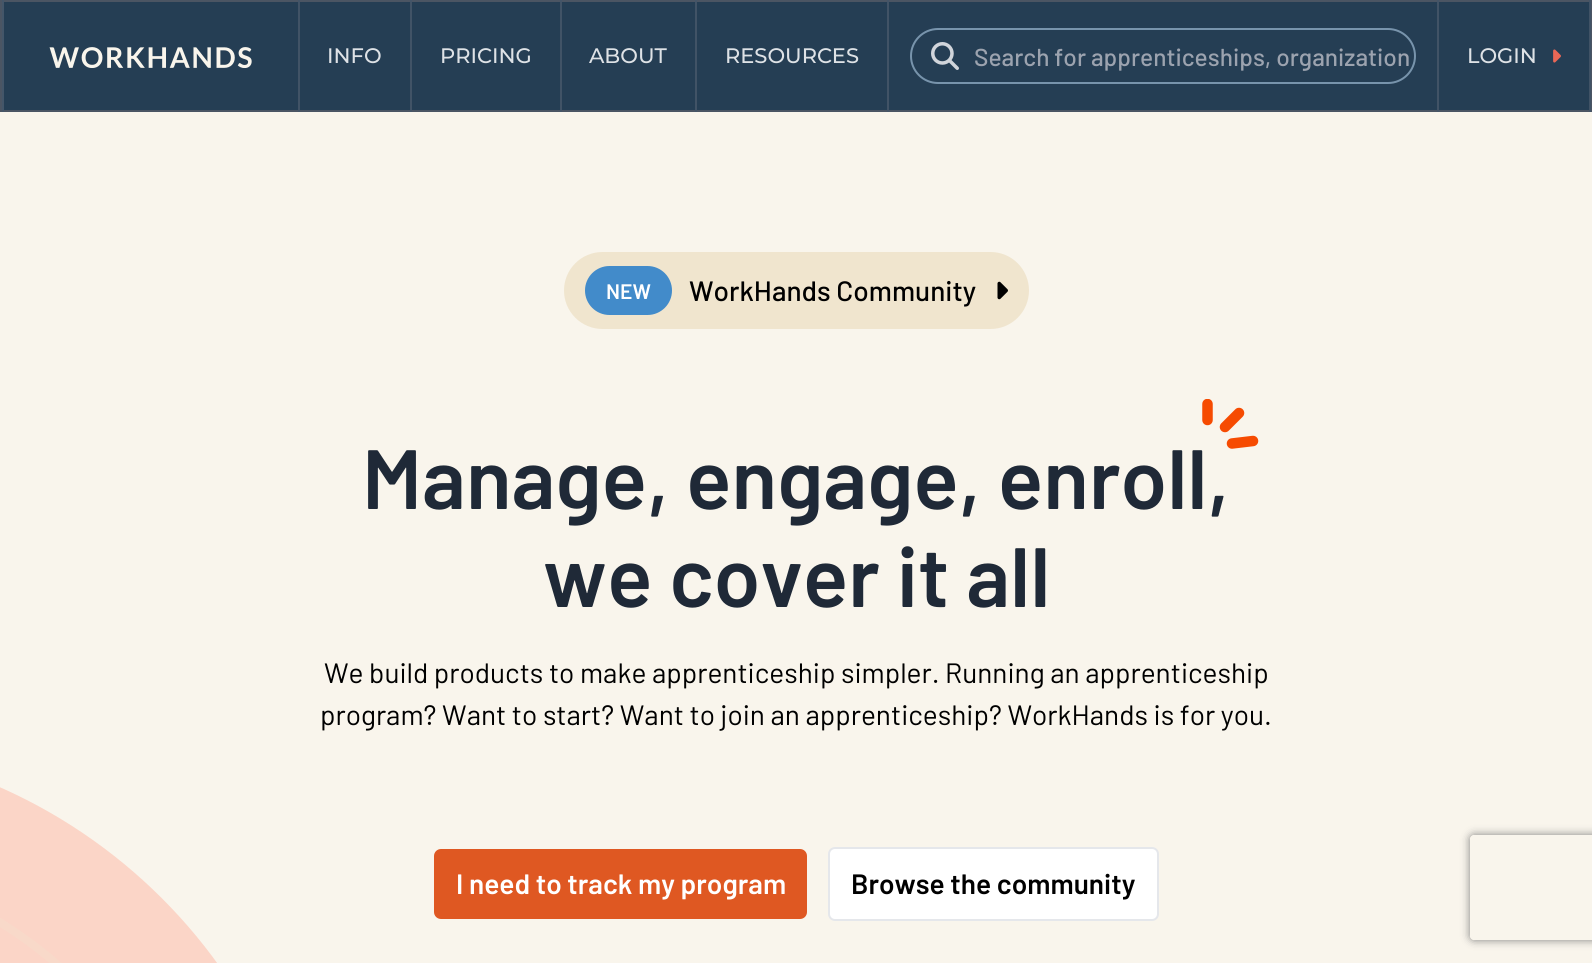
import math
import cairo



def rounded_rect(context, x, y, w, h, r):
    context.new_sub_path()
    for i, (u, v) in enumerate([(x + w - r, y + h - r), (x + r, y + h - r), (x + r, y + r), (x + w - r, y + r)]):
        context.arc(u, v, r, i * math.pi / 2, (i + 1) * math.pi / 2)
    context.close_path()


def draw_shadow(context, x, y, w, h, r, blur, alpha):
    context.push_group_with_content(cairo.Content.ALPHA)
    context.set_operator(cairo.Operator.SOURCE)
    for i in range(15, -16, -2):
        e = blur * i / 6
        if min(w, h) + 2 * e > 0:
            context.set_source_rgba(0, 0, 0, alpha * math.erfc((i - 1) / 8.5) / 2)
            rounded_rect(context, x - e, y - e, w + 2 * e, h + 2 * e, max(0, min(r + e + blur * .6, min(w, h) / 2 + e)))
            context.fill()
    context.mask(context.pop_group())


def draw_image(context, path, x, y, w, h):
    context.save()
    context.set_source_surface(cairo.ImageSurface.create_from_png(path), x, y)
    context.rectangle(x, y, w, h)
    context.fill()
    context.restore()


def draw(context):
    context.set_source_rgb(37 / 255, 62 / 255, 84 / 255)
    context.paint()
    context.rectangle(1, 1, 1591, 110)
    context.set_source_rgb(75 / 255, 85 / 255, 99 / 255)
    context.stroke()
    context.set_source_rgb(68 / 255, 86 / 255, 105 / 255)
    context.rectangle(2, 0, 2, 112)
    context.fill()
    draw_image(context, "images/1.png", 49, 47, 203, 21)
    context.set_source_rgba(68 / 255, 86 / 255, 105 / 255, 0.9)
    context.rectangle(298, 0, 2, 112)
    context.fill()
    context.rectangle(410, 0, 2, 112)
    context.fill()
    context.rectangle(560, 0, 2, 112)
    context.fill()
    context.rectangle(887, 0, 2, 112)
    context.fill()
    context.rectangle(695, 0, 2, 112)
    context.fill()
    rounded_rect(context, 911, 29, 504, 54, 27)
    context.set_source_rgb(120 / 255, 148 / 255, 172 / 255)
    context.stroke()
    draw_image(context, "images/2.png", 931, 42, 28, 28)
    context.set_source_rgba(68 / 255, 86 / 255, 105 / 255, 0.9)
    context.rectangle(1589, 0, 2, 112)
    context.fill()
    context.rectangle(1437, 0, 2, 112)
    context.fill()
    draw_image(context, "images/3.png", 1553, 49, 8, 14)
    context.set_source_rgb(249 / 255, 245 / 255, 236 / 255)
    context.rectangle(0, 112, 1592, 851)
    context.fill()
    context.set_source_rgb(251 / 255, 213 / 255, 199 / 255)
    context.new_path()
    context.move_to(318, 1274)
    context.curve_to(318, 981, 79, 742, -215, 742)
    context.line_to(-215, 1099)
    context.curve_to(-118, 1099, -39, 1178, -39, 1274)
    context.close_path()
    context.fill()
    context.set_source_rgb(248 / 255, 217 / 255, 201 / 255)
    context.new_path()
    context.move_to(194, 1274)
    context.curve_to(194, 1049, 10, 866, -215, 866)
    context.line_to(-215, 858)
    context.curve_to(15, 858, 202, 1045, 202, 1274)
    context.close_path()
    context.fill()
    context.set_source_rgb(240 / 255, 229 / 255, 206 / 255)
    rounded_rect(context, 564, 252, 465, 77, 38.5)
    context.fill()
    context.set_source_rgb(66 / 255, 139 / 255, 202 / 255)
    rounded_rect(context, 585, 266, 87, 49, 24.5)
    context.fill()
    draw_image(context, "images/4.png", 997, 281, 11, 19)
    context.save()
    context.rectangle(1202, 399, 56, 51)
    context.clip()
    context.new_path()
    context.move_to(1207.5, 420)
    context.line_to(1207.5, 404)
    context.set_source_rgb(246 / 255, 75 / 255, 1 / 255)
    context.set_line_width(10.5)
    context.set_line_cap(cairo.LineCap.ROUND)
    context.stroke()
    context.restore()
    context.new_path()
    context.move_to(1225, 427)
    context.line_to(1239, 413)
    context.move_to(1232, 443.5)
    context.line_to(1253, 441)
    context.set_source_rgb(246 / 255, 75 / 255, 1 / 255)
    context.set_line_width(10.5)
    context.set_line_cap(cairo.LineCap.ROUND)
    context.stroke()
    context.set_source_rgb(223 / 255, 88 / 255, 34 / 255)
    rounded_rect(context, 434, 849, 373, 70, 7)
    context.fill()
    context.set_source_rgb(1, 1, 1)
    rounded_rect(context, 829, 848, 329, 72, 6)
    context.fill_preserve()
    context.set_source_rgb(229 / 255, 231 / 255, 235 / 255)
    context.set_line_width(2)
    context.set_line_cap(cairo.LineCap.BUTT)
    context.stroke()
    context.save()
    context.set_fill_rule(cairo.FillRule.EVEN_ODD)
    context.new_path()
    context.move_to(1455, 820)
    context.line_to(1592, 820)
    context.line_to(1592, 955)
    context.line_to(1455, 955)
    context.close_path()
    context.move_to(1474, 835)
    context.line_to(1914, 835)
    context.curve_to(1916, 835, 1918, 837, 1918, 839)
    context.line_to(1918, 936)
    context.curve_to(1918, 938, 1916, 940, 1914, 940)
    context.line_to(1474, 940)
    context.curve_to(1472, 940, 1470, 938, 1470, 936)
    context.line_to(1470, 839)
    context.curve_to(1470, 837, 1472, 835, 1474, 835)
    context.close_path()
    context.clip()
    context.set_source_rgb(128 / 255, 128 / 255, 128 / 255)
    draw_shadow(context, 1470, 835, 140, 105, 4, 4.5, 1)
    context.restore()
    context.select_font_face("Montserrat Medium")
    context.set_font_size(21)
    context.set_source_rgb(222 / 255, 226 / 255, 230 / 255)
    context.move_to(327, 63)
    context.show_text("INFO")
    context.move_to(440, 63)
    context.show_text("PRICING")
    context.move_to(589, 63)
    context.show_text("ABOUT")
    context.move_to(725, 63)
    context.show_text("RESOURCES")
    context.select_font_face("Barlow Medium")
    context.set_font_size(24.5)
    context.set_source_rgb(156 / 255, 163 / 255, 175 / 255)
    context.move_to(974, 66)
    context.show_text("Search for apprenticeships, organization")
    context.select_font_face("Montserrat Medium")
    context.set_font_size(21)
    context.set_source_rgb(222 / 255, 226 / 255, 230 / 255)
    context.move_to(1467, 63)
    context.show_text("LOGIN")
    context.select_font_face("Barlow SemiBold")
    context.set_source_rgb(1, 1, 1)
    context.move_to(606, 299)
    context.show_text("NEW")
    context.select_font_face("Barlow Medium")
    context.set_font_size(28)
    context.set_source_rgb(0, 0, 0)
    context.move_to(689, 301)
    context.show_text("WorkHands Community")
    context.select_font_face("Barlow SemiBold")
    context.set_font_size(84)
    context.set_source_rgb(31 / 255, 41 / 255, 55 / 255)
    context.move_to(362, 509)
    context.show_text("Manage, engage, enroll,")
    context.move_to(543, 607)
    context.show_text("we cover it all")
    context.select_font_face("Barlow")
    context.set_font_size(28)
    context.set_source_rgb(0, 0, 0)
    context.move_to(324, 683)
    context.show_text("We build products to make apprenticeship simpler. Running an apprenticeship")
    context.move_to(320, 725)
    context.show_text("program? Want to start? Want to join an apprenticeship? WorkHands is for you.")
    context.select_font_face("Barlow SemiBold")
    context.set_source_rgb(1, 1, 1)
    context.move_to(456, 894)
    context.show_text("I need to track my program")
    context.set_source_rgb(0, 0, 0)
    context.move_to(851, 894)
    context.show_text("Browse the community")


surface = cairo.ImageSurface(cairo.Format.RGB24, 1592, 963)
context = cairo.Context(surface)
options = cairo.FontOptions()
options.set_hint_metrics(cairo.HintMetrics.OFF)
options.set_hint_style(cairo.HintStyle.NONE)
context.set_font_options(options)
context.set_miter_limit(4)
draw(context)
surface.write_to_png("out.png")
